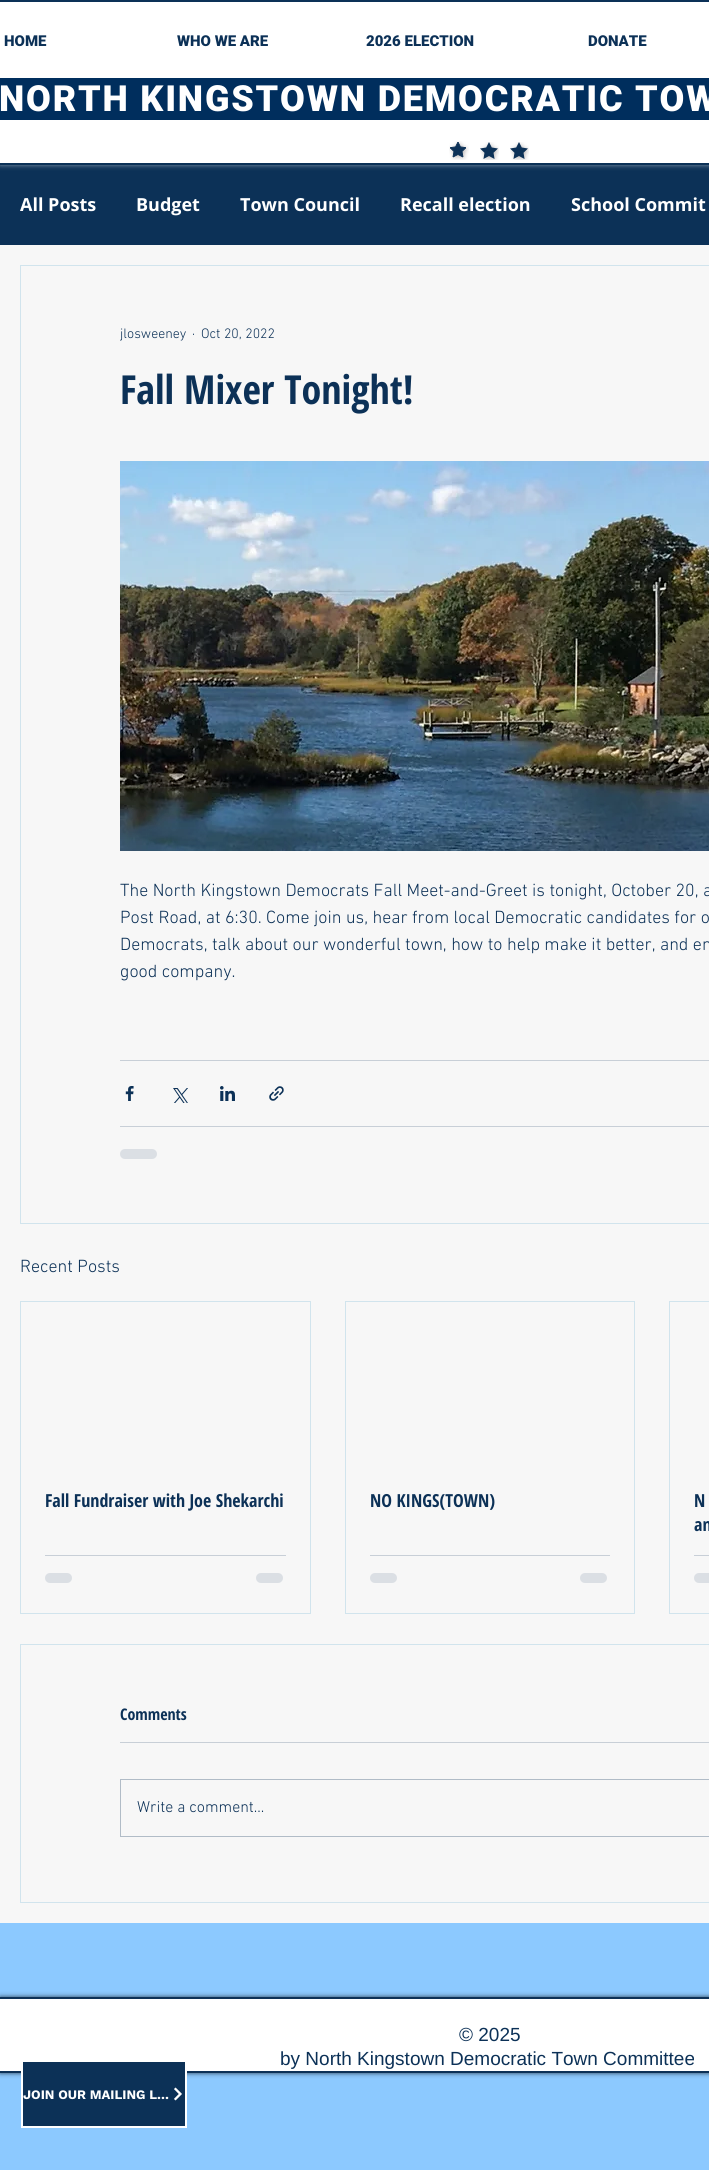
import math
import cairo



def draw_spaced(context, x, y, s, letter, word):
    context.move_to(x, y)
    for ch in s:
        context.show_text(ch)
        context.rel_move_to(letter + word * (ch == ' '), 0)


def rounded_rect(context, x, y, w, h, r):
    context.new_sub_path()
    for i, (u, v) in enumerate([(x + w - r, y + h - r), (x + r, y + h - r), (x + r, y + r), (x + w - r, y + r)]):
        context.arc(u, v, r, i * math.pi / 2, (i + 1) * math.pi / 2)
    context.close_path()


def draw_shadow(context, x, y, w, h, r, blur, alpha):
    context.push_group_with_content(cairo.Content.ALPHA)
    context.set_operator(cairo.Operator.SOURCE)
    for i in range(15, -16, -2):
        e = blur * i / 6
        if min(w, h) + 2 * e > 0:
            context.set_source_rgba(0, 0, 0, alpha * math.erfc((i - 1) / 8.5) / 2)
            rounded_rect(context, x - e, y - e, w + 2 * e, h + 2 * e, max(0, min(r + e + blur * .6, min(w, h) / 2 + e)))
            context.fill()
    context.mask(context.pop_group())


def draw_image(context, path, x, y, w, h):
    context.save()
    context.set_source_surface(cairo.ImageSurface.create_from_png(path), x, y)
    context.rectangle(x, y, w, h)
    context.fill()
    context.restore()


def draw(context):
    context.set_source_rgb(140 / 255, 201 / 255, 1)
    context.paint()
    context.set_source_rgb(12 / 255, 49 / 255, 87 / 255)
    context.rectangle(0, 165, 709, 80)
    context.fill()
    context.set_source_rgb(1, 1, 1)
    draw_shadow(context, 0, 0, 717, 165, 0, 2.5, 0.5)
    context.set_source_rgb(1, 1, 1)
    context.rectangle(0, 2, 709, 161)
    context.fill()
    context.set_source_rgb(12 / 255, 49 / 255, 87 / 255)
    context.rectangle(0, 0, 709, 2)
    context.fill()
    context.rectangle(0, 163, 709, 2)
    context.fill()
    context.set_source_rgb(0, 46 / 255, 93 / 255)
    context.rectangle(0, 78, 709, 42)
    context.fill()
    draw_image(context, "images/1.png", 449, 141, 20, 19)
    draw_image(context, "images/2.png", 480, 142, 19, 18)
    draw_image(context, "images/2.png", 510, 142, 19, 18)
    context.set_source_rgb(247 / 255, 247 / 255, 247 / 255)
    context.rectangle(0, 245, 709, 1678)
    context.fill()
    context.rectangle(20.5, 265.5, 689, 958)
    context.set_source_rgb(209 / 255, 228 / 255, 237 / 255)
    context.set_line_width(1)
    context.stroke()
    draw_image(context, "images/3.png", 120, 461, 589, 390)
    context.set_source_rgb(200 / 255, 207 / 255, 215 / 255)
    context.rectangle(120, 1060, 589, 1)
    context.fill()
    draw_image(context, "images/4.png", 125, 1086, 9, 15)
    draw_image(context, "images/5.png", 173, 1088, 15, 15)
    draw_image(context, "images/6.png", 220, 1086, 15, 15)
    draw_image(context, "images/7.png", 269, 1086, 15, 15)
    context.rectangle(120, 1126, 589, 1)
    context.fill()
    context.set_source_rgb(219 / 255, 223 / 255, 228 / 255)
    rounded_rect(context, 120, 1149, 37, 10, 5)
    context.fill()
    context.rectangle(20.5, 1301.5, 290, 312)
    context.set_source_rgb(209 / 255, 228 / 255, 237 / 255)
    context.stroke()
    context.set_source_rgb(200 / 255, 207 / 255, 215 / 255)
    context.rectangle(45, 1555, 241, 1)
    context.fill()
    context.set_source_rgb(219 / 255, 223 / 255, 228 / 255)
    rounded_rect(context, 45, 1573, 27, 10, 5)
    context.fill()
    rounded_rect(context, 256, 1573, 27, 10, 5)
    context.fill()
    context.rectangle(345.5, 1301.5, 289, 312)
    context.set_source_rgb(209 / 255, 228 / 255, 237 / 255)
    context.stroke()
    context.set_source_rgb(200 / 255, 207 / 255, 215 / 255)
    context.rectangle(370, 1555, 240, 1)
    context.fill()
    context.set_source_rgb(219 / 255, 223 / 255, 228 / 255)
    rounded_rect(context, 370, 1573, 27, 10, 5)
    context.fill()
    rounded_rect(context, 580, 1573, 27, 10, 5)
    context.fill()
    context.rectangle(669.5, 1301.5, 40, 312)
    context.set_source_rgb(209 / 255, 228 / 255, 237 / 255)
    context.stroke()
    context.set_source_rgb(200 / 255, 207 / 255, 215 / 255)
    context.rectangle(694, 1555, 15, 1)
    context.fill()
    context.set_source_rgb(219 / 255, 223 / 255, 228 / 255)
    rounded_rect(context, 694, 1573, 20, 10, 5)
    context.fill()
    context.rectangle(20.5, 1644.5, 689, 258)
    context.set_source_rgb(209 / 255, 228 / 255, 237 / 255)
    context.stroke()
    context.set_source_rgb(200 / 255, 207 / 255, 215 / 255)
    context.rectangle(120, 1742, 589, 1)
    context.fill()
    context.rectangle(120.5, 1779.5, 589, 57)
    context.set_source_rgb(177 / 255, 188 / 255, 199 / 255)
    context.stroke()
    context.set_source_rgb(0, 0, 0)
    draw_shadow(context, 0, 1997, 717, 76, 0, 2.5, 0.7)
    context.set_source_rgb(1, 1, 1)
    context.rectangle(0, 1999, 709, 72)
    context.fill()
    context.set_source_rgb(12 / 255, 49 / 255, 87 / 255)
    context.rectangle(0, 1997, 709, 2)
    context.fill()
    context.rectangle(0, 2071, 709, 2)
    context.fill()
    context.rectangle(22, 2061, 164, 66)
    context.fill_preserve()
    context.set_source_rgb(1, 1, 1)
    context.set_line_width(2)
    context.stroke()
    draw_image(context, "images/8.png", 174, 2087, 8, 14)
    context.select_font_face("Roboto Black")
    context.set_font_size(15)
    context.set_source_rgb(12 / 255, 49 / 255, 87 / 255)
    context.move_to(4, 46)
    context.show_text("HOME")
    context.move_to(177, 46)
    context.show_text("WHO WE ARE")
    context.move_to(366, 46)
    context.show_text("2026 ELECTION")
    context.move_to(588, 46)
    context.show_text("DONATE")
    context.set_font_size(36)
    context.set_source_rgb(1, 1, 1)
    draw_spaced(context, -1, 111, "NORTH KINGSTOWN DEMOCRATIC TOW", 1.8, 0)
    context.select_font_face("Open Sans", cairo.FontSlant.NORMAL, cairo.FontWeight.BOLD)
    context.set_font_size(18)
    context.move_to(20, 211)
    context.show_text("All Posts")
    context.move_to(136, 211)
    context.show_text("Budget")
    context.move_to(240, 211)
    context.show_text("Town Council")
    context.move_to(400, 211)
    context.show_text("Recall election")
    context.move_to(571, 211)
    context.show_text("School Commit")
    context.select_font_face("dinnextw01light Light")
    context.set_font_size(14)
    context.set_source_rgb(12 / 255, 49 / 255, 87 / 255)
    context.move_to(120, 338)
    context.show_text("jlosweeney")
    context.move_to(192, 338)
    context.show_text("·")
    context.move_to(201, 338)
    context.show_text("Oct 20, 2022")
    context.select_font_face("Open Sans Condensed", cairo.FontSlant.NORMAL, cairo.FontWeight.BOLD)
    context.set_font_size(40)
    context.move_to(120, 404)
    context.show_text("Fall Mixer Tonight!")
    context.select_font_face("dinnextw01light Light")
    context.set_font_size(18)
    context.move_to(120, 896)
    context.show_text("The North Kingstown Democrats Fall Meet-and-Greet is tonight, October 20, a")
    context.move_to(120, 923)
    context.show_text("Post Road, at 6:30. Come join us, hear from local Democratic candidates for o")
    context.move_to(120, 950)
    context.show_text("Democrats, talk about our wonderful town, how to help make it better, and en")
    context.move_to(120, 977)
    context.show_text("good company.")
    context.move_to(20, 1272)
    context.show_text("Recent Posts")
    context.select_font_face("Open Sans Condensed", cairo.FontSlant.NORMAL, cairo.FontWeight.BOLD)
    context.move_to(45, 1507)
    context.show_text("Fall Fundraiser with Joe Shekarchi")
    context.move_to(370, 1507)
    context.show_text("NO KINGS(TOWN)")
    context.move_to(694, 1507)
    context.show_text("N")
    context.move_to(694, 1531)
    context.show_text("an")
    context.set_font_size(16)
    context.move_to(120, 1720)
    context.show_text("Comments")
    context.select_font_face("dinnextw01light Light")
    context.move_to(137, 1812)
    context.show_text("Write a comment...")
    context.select_font_face("Liberation Sans")
    context.set_font_size(19)
    context.move_to(459, 2041)
    context.show_text("© 2025")
    context.move_to(280, 2065)
    context.show_text("by North Kingstown Democratic Town Committee")
    context.select_font_face("Work Sans", cairo.FontSlant.NORMAL, cairo.FontWeight.BOLD)
    context.set_font_size(13)
    context.set_source_rgb(1, 1, 1)
    context.move_to(23, 2099)
    context.show_text("JOIN OUR MAILING L…")


surface = cairo.ImageSurface(cairo.Format.RGB24, 709, 2170)
context = cairo.Context(surface)
options = cairo.FontOptions()
options.set_hint_metrics(cairo.HintMetrics.OFF)
options.set_hint_style(cairo.HintStyle.NONE)
context.set_font_options(options)
context.set_miter_limit(4)
draw(context)
surface.write_to_png("out.png")
